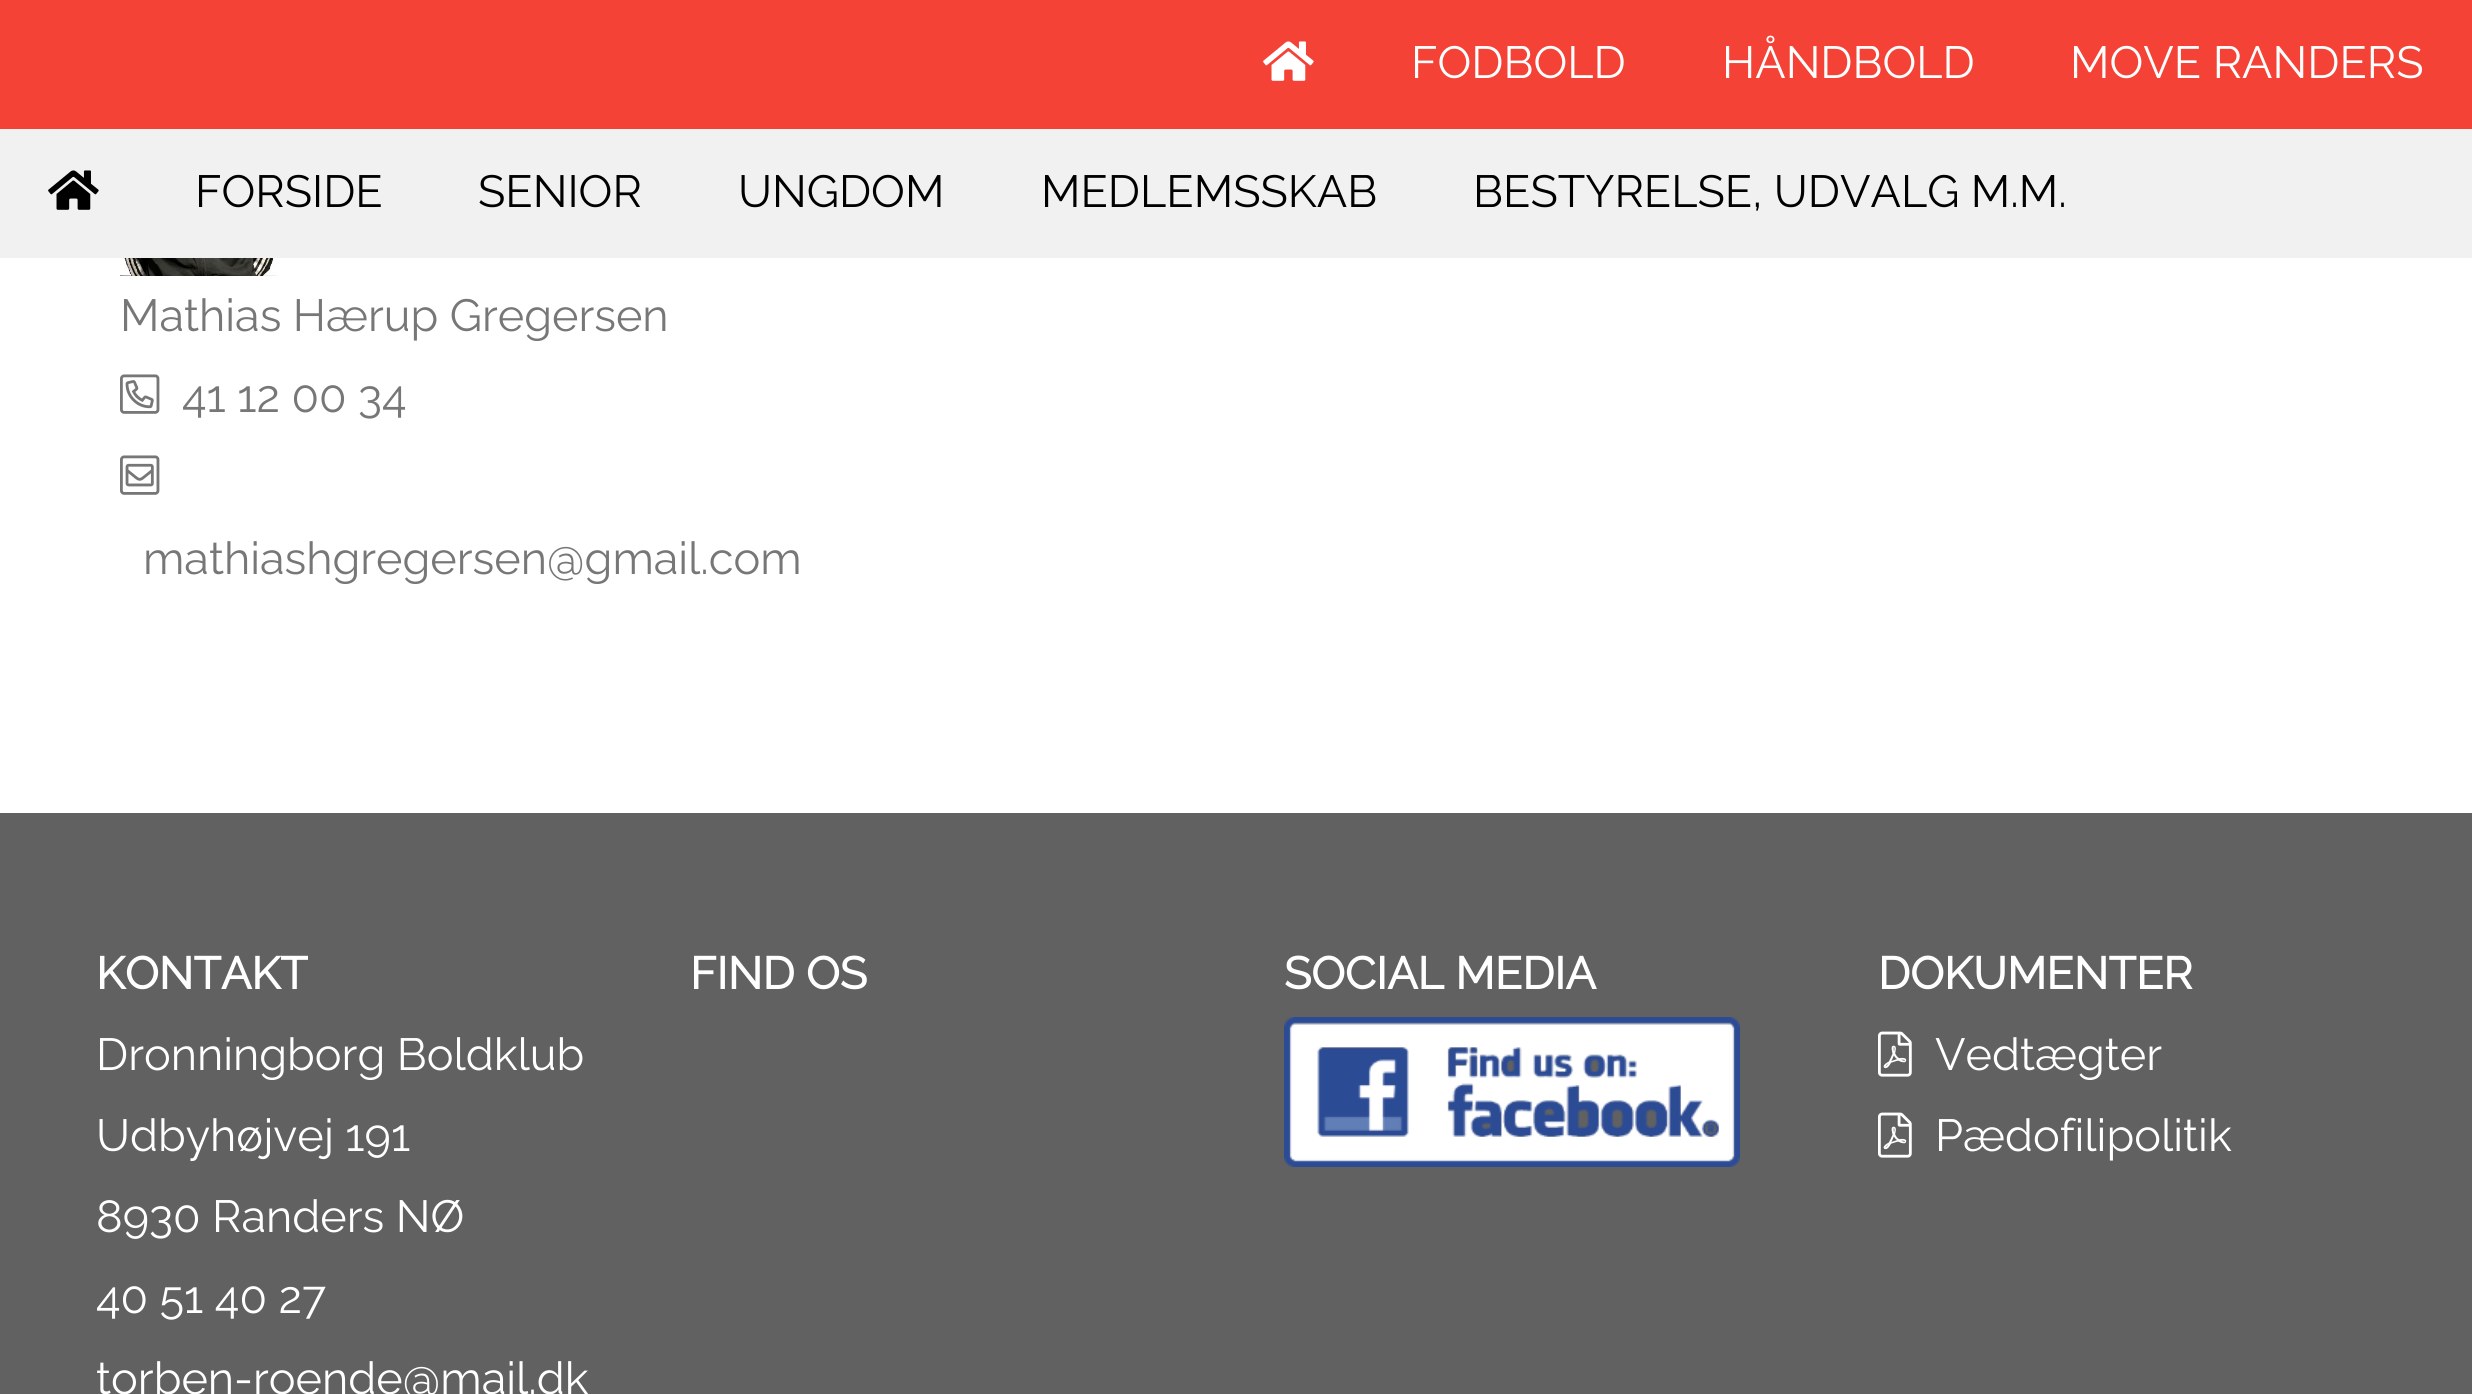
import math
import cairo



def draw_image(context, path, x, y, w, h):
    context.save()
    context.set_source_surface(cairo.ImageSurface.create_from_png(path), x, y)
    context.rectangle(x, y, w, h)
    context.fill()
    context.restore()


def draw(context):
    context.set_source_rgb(1, 1, 1)
    context.paint()
    context.set_source_rgb(244 / 255, 67 / 255, 54 / 255)
    context.rectangle(0, 0, 2472, 129)
    context.fill()
    draw_image(context, "images/1.png", 1263, 41, 51, 40)
    context.set_source_rgb(241 / 255, 241 / 255, 241 / 255)
    context.rectangle(0, 129, 2472, 129)
    context.fill()
    draw_image(context, "images/2.png", 48, 170, 51, 40)
    draw_image(context, "images/3.png", 120, 258, 159, 18)
    draw_image(context, "images/4.png", 120, 374, 40, 40)
    draw_image(context, "images/5.png", 120, 455, 40, 40)
    context.set_source_rgb(97 / 255, 97 / 255, 97 / 255)
    context.rectangle(0, 813, 2472, 581)
    context.fill()
    draw_image(context, "images/6.png", 1284, 1017, 456, 150)
    draw_image(context, "images/7.png", 1878, 1031, 34, 46)
    draw_image(context, "images/7.png", 1878, 1112, 34, 46)
    context.select_font_face("Raleway Thin")
    context.set_font_size(45)
    context.set_source_rgb(1, 1, 1)
    context.move_to(1411, 78)
    context.show_text("FODBOLD")
    context.move_to(1722, 78)
    context.show_text("HÅNDBOLD")
    context.move_to(2070, 78)
    context.show_text("MOVE RANDERS")
    context.set_source_rgb(0, 0, 0)
    context.move_to(195, 207)
    context.show_text("FORSIDE")
    context.move_to(478, 207)
    context.show_text("SENIOR")
    context.move_to(738, 207)
    context.show_text("UNGDOM")
    context.move_to(1041, 207)
    context.show_text("MEDLEMSSKAB")
    context.move_to(1473, 207)
    context.show_text("BESTYRELSE, UDVALG M.M.")
    context.set_source_rgb(119 / 255, 119 / 255, 119 / 255)
    context.move_to(120, 331)
    context.show_text("Mathias Hærup Gregersen")
    context.move_to(182, 412)
    context.show_text("41 12 00 34")
    context.move_to(143, 574)
    context.show_text("mathiashgregersen@gmail.com")
    context.select_font_face("Raleway", cairo.FontSlant.NORMAL, cairo.FontWeight.BOLD)
    context.set_source_rgb(1, 1, 1)
    context.move_to(96, 989)
    context.show_text("KONTAKT")
    context.select_font_face("Raleway Thin")
    context.move_to(96, 1070)
    context.show_text("Dronningborg Boldklub")
    context.move_to(96, 1151)
    context.show_text("Udbyhøjvej 191")
    context.move_to(96, 1232)
    context.show_text("8930 Randers NØ")
    context.move_to(96, 1313)
    context.show_text("40 51 40 27")
    context.move_to(96, 1394)
    context.show_text("torben-roende@mail.dk")
    context.select_font_face("Raleway", cairo.FontSlant.NORMAL, cairo.FontWeight.BOLD)
    context.move_to(690, 989)
    context.show_text("FIND OS")
    context.move_to(1284, 989)
    context.show_text("SOCIAL MEDIA")
    context.move_to(1878, 989)
    context.show_text("DOKUMENTER")
    context.select_font_face("Raleway Thin")
    context.move_to(1935, 1070)
    context.show_text("Vedtægter")
    context.move_to(1935, 1151)
    context.show_text("Pædofilipolitik")


surface = cairo.ImageSurface(cairo.Format.RGB24, 2472, 1394)
context = cairo.Context(surface)
options = cairo.FontOptions()
options.set_hint_metrics(cairo.HintMetrics.OFF)
options.set_hint_style(cairo.HintStyle.NONE)
context.set_font_options(options)
context.set_miter_limit(4)
draw(context)
surface.write_to_png("out.png")
